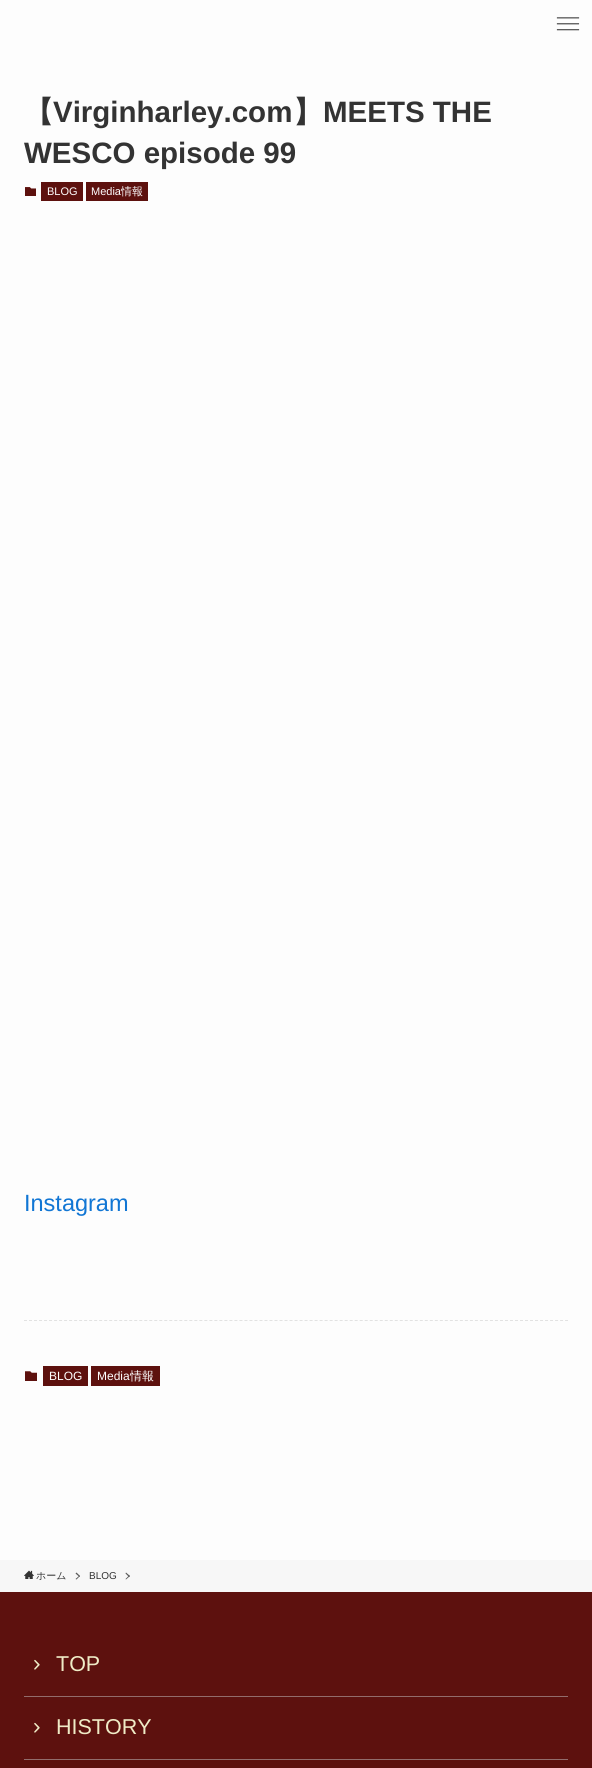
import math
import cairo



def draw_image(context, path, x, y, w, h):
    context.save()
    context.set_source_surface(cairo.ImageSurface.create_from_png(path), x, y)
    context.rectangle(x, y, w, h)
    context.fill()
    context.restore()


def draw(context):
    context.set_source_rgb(253 / 255, 253 / 255, 253 / 255)
    context.paint()
    draw_image(context, "images/1.png", 556, 17, 24, 14)
    draw_image(context, "images/2.png", 25, 187, 11, 9)
    context.set_source_rgb(93 / 255, 17 / 255, 14 / 255)
    context.rectangle(41, 182, 42, 19)
    context.fill()
    context.rectangle(86, 182, 62, 19)
    context.fill()
    context.new_path()
    context.move_to(24, 1320.5)
    context.line_to(568, 1320.5)
    context.set_source_rgb(226 / 255, 226 / 255, 226 / 255)
    context.set_line_width(1)
    context.set_dash([3, 2.01])
    context.stroke()
    draw_image(context, "images/3.png", 25, 1371, 12, 10)
    context.set_source_rgb(93 / 255, 17 / 255, 14 / 255)
    context.rectangle(43, 1366, 45, 20)
    context.fill()
    context.rectangle(91, 1366, 69, 20)
    context.fill()
    context.set_source_rgb(247 / 255, 247 / 255, 247 / 255)
    context.rectangle(0, 1560, 592, 32)
    context.fill()
    draw_image(context, "images/4.png", 24, 1570, 10, 9)
    context.set_source_rgb(90 / 255, 90 / 255, 90 / 255)
    context.new_path()
    context.move_to(76.5, 1572.5)
    context.line_to(80, 1576)
    context.line_to(79.5, 1577)
    context.line_to(75.5, 1573.5)
    context.close_path()
    context.fill()
    context.new_path()
    context.move_to(79.5, 1575.5)
    context.line_to(80, 1576)
    context.line_to(76.5, 1579.5)
    context.line_to(75.5, 1579)
    context.close_path()
    context.fill()
    context.new_path()
    context.move_to(126, 1572.5)
    context.line_to(130, 1576)
    context.line_to(129, 1577)
    context.line_to(125.5, 1573.5)
    context.close_path()
    context.fill()
    context.new_path()
    context.move_to(129, 1575.5)
    context.line_to(130, 1576)
    context.line_to(126, 1579.5)
    context.line_to(125.5, 1579)
    context.close_path()
    context.fill()
    context.set_source_rgb(93 / 255, 17 / 255, 14 / 255)
    context.rectangle(0, 1592, 592, 176)
    context.fill()
    context.set_source_rgb(146 / 255, 108 / 255, 107 / 255)
    context.rectangle(24, 1696, 544, 1)
    context.fill()
    draw_image(context, "images/5.png", 34, 1659, 6, 11)
    context.rectangle(24, 1759, 544, 1)
    context.fill()
    draw_image(context, "images/5.png", 34, 1722, 6, 11)
    context.select_font_face("WenQuanYi Zen Hei", cairo.FontSlant.NORMAL, cairo.FontWeight.BOLD)
    context.set_font_size(29.5)
    context.set_source_rgb(51 / 255, 51 / 255, 51 / 255)
    context.move_to(24, 122)
    context.show_text("【")
    context.select_font_face("Liberation Sans", cairo.FontSlant.NORMAL, cairo.FontWeight.BOLD)
    context.move_to(53, 122)
    context.show_text("Virginharley.com")
    context.select_font_face("WenQuanYi Zen Hei", cairo.FontSlant.NORMAL, cairo.FontWeight.BOLD)
    context.move_to(293, 122)
    context.show_text("】")
    context.select_font_face("Liberation Sans", cairo.FontSlant.NORMAL, cairo.FontWeight.BOLD)
    context.move_to(323, 122)
    context.show_text("MEETS THE")
    context.move_to(24, 163)
    context.show_text("WESCO episode 99")
    context.select_font_face("Liberation Sans")
    context.set_font_size(11)
    context.set_source_rgb(1, 1, 1)
    context.move_to(47, 195)
    context.show_text("BLOG")
    context.move_to(91, 195)
    context.show_text("Media")
    context.select_font_face("WenQuanYi Zen Hei Medium")
    context.move_to(121, 195)
    context.show_text("情報")
    context.select_font_face("Liberation Sans")
    context.set_font_size(23.5)
    context.set_source_rgb(17 / 255, 118 / 255, 212 / 255)
    context.move_to(24, 1211)
    context.show_text("Instagram")
    context.set_font_size(12)
    context.set_source_rgb(1, 1, 1)
    context.move_to(49, 1380)
    context.show_text("BLOG")
    context.move_to(97, 1380)
    context.show_text("Media")
    context.select_font_face("WenQuanYi Zen Hei Medium")
    context.move_to(130, 1380)
    context.show_text("情報")
    context.set_font_size(10)
    context.set_source_rgb(51 / 255, 51 / 255, 51 / 255)
    context.move_to(36, 1579)
    context.show_text("ホーム")
    context.select_font_face("Liberation Sans")
    context.move_to(89, 1579)
    context.show_text("BLOG")
    context.set_font_size(21.5)
    context.set_source_rgb(239 / 255, 235 / 255, 198 / 255)
    context.move_to(56, 1671)
    context.show_text("TOP")
    context.move_to(56, 1734)
    context.show_text("HISTORY")


surface = cairo.ImageSurface(cairo.Format.RGB24, 592, 1768)
context = cairo.Context(surface)
options = cairo.FontOptions()
options.set_hint_metrics(cairo.HintMetrics.OFF)
options.set_hint_style(cairo.HintStyle.NONE)
context.set_font_options(options)
context.set_miter_limit(4)
draw(context)
surface.write_to_png("out.png")
